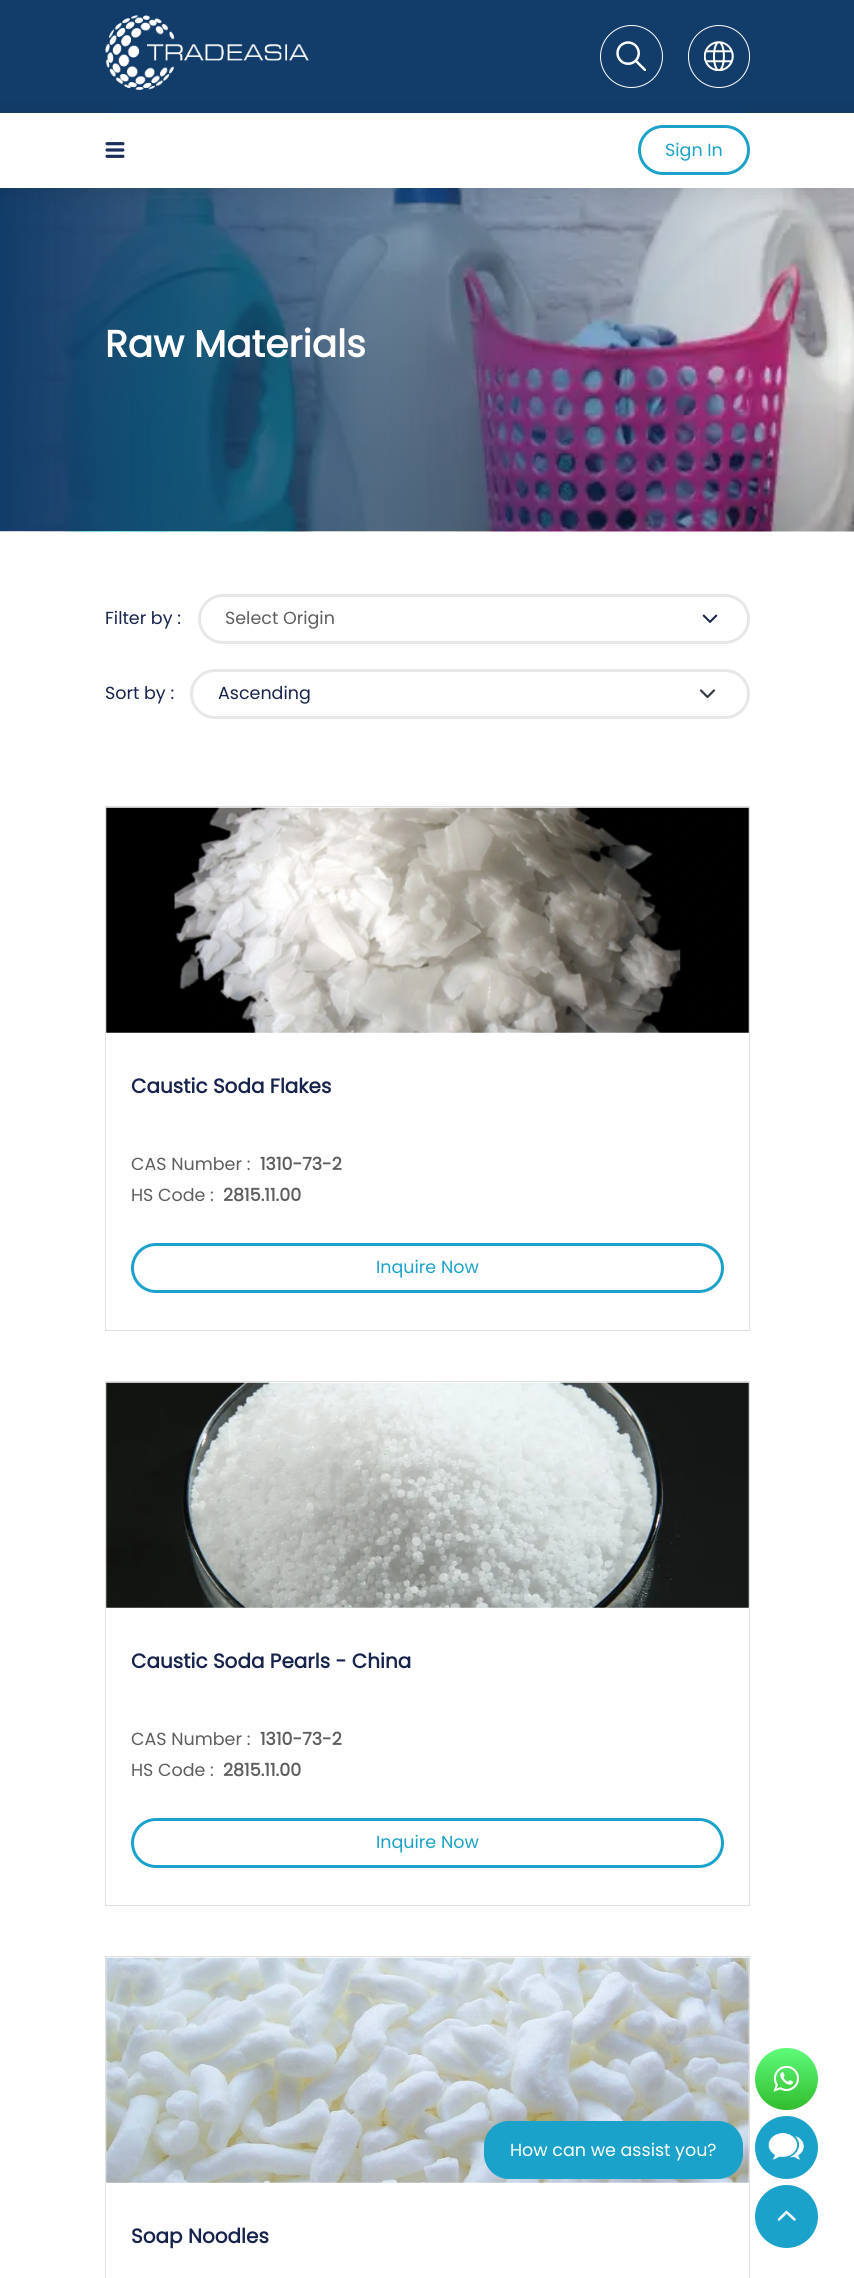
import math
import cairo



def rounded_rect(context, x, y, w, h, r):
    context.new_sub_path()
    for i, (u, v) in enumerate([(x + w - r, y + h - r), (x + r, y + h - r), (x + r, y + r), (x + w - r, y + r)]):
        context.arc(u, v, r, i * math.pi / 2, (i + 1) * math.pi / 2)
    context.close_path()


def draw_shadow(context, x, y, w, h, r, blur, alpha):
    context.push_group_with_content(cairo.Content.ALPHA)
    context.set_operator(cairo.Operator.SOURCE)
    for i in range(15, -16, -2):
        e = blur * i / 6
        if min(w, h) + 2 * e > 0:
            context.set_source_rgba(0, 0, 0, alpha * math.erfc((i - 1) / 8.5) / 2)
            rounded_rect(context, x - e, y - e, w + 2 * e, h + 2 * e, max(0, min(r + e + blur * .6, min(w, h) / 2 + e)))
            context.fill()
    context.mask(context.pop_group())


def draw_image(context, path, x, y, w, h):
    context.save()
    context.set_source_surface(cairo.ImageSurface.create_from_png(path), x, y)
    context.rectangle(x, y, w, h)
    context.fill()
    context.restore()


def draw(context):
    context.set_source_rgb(1, 1, 1)
    context.paint()
    context.set_source_rgb(18 / 255, 60 / 255, 105 / 255)
    context.rectangle(0, 0, 854, 113)
    context.fill()
    draw_image(context, "images/5.png", 0, 188, 854, 344)
    gradient = cairo.LinearGradient(0, 344, 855, 344)
    gradient.add_color_stop_rgba(0, 18 / 255, 60 / 255, 105 / 255, 1)
    gradient.add_color_stop_rgba(0.56, 18 / 255, 60 / 255, 105 / 255, 0.48)
    gradient.add_color_stop_rgba(1, 18 / 255, 60 / 255, 105 / 255, 0)
    context.set_source(gradient)
    context.rectangle(0, 188, 838, 343)
    context.fill()
    context.set_source_rgb(0, 0, 0)
    draw_shadow(context, 0, 118, 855, 75, 0, 12.5, 0.1)
    context.set_source_rgb(18 / 255, 60 / 255, 105 / 255)
    context.rectangle(105, 109, 645, 4)
    context.fill()
    draw_image(context, "images/1.png", 105, 15, 204, 75)
    context.arc(631.5, 56.5, 31, 0, 2 * math.pi)
    context.set_source_rgb(1, 1, 1)
    context.set_line_width(1)
    context.stroke()
    draw_image(context, "images/2.png", 616, 41, 30, 30)
    rounded_rect(context, 688.5, 25.5, 61, 62, 30.5)
    context.stroke()
    draw_image(context, "images/3.png", 704, 41, 30, 30)
    context.rectangle(0, 113, 854, 75)
    context.fill()
    draw_image(context, "images/4.png", 105, 142, 20, 16)
    rounded_rect(context, 639.5, 126.5, 109, 47, 23.5)
    context.set_source_rgb(27 / 255, 162 / 255, 202 / 255)
    context.set_line_width(3)
    context.stroke()
    rounded_rect(context, 199.5, 595.5, 549, 47, 23.5)
    context.set_source_rgb(229 / 255, 231 / 255, 233 / 255)
    context.stroke()
    draw_image(context, "images/6.png", 702, 614, 16, 9)
    context.new_path()
    context.move_to(701, 690.5)
    context.line_to(707.5, 697)
    context.line_to(714, 690.5)
    context.set_source_rgb(52 / 255, 58 / 255, 64 / 255)
    context.set_line_width(2.2)
    context.set_line_cap(cairo.LineCap.ROUND)
    context.set_line_join(cairo.LineJoin.ROUND)
    context.stroke()
    rounded_rect(context, 191.5, 670.5, 557, 47, 23.5)
    context.set_source_rgb(229 / 255, 231 / 255, 233 / 255)
    context.set_line_width(3)
    context.set_line_cap(cairo.LineCap.BUTT)
    context.set_line_join(cairo.LineJoin.MITER)
    context.stroke()
    context.rectangle(105.5, 806.5, 644, 524)
    context.set_source_rgb(223 / 255, 223 / 255, 223 / 255)
    context.set_line_width(1)
    context.stroke()
    draw_image(context, "images/7.png", 106, 807, 643, 226)
    rounded_rect(context, 132.5, 1244.5, 590, 47, 23.5)
    context.set_source_rgb(27 / 255, 162 / 255, 202 / 255)
    context.set_line_width(3)
    context.stroke()
    context.rectangle(105.5, 1381.5, 644, 524)
    context.set_source_rgb(223 / 255, 223 / 255, 223 / 255)
    context.set_line_width(1)
    context.stroke()
    draw_image(context, "images/8.png", 106, 1382, 643, 226)
    rounded_rect(context, 132.5, 1819.5, 590, 47, 23.5)
    context.set_source_rgb(27 / 255, 162 / 255, 202 / 255)
    context.set_line_width(3)
    context.stroke()
    context.rectangle(105.5, 1956.5, 644, 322)
    context.set_source_rgb(223 / 255, 223 / 255, 223 / 255)
    context.set_line_width(1)
    context.stroke()
    draw_image(context, "images/9.png", 106, 1957, 643, 226)
    gradient = cairo.LinearGradient(786, 2048, 786, 2110)
    gradient.add_color_stop_rgba(0, 94 / 255, 250 / 255, 121 / 255, 1)
    gradient.add_color_stop_rgba(1, 50 / 255, 189 / 255, 46 / 255, 1)
    context.set_source(gradient)
    rounded_rect(context, 755, 2048, 63, 62, 31)
    context.fill()
    draw_image(context, "images/10.png", 773, 2065, 27, 27)
    context.set_source_rgb(27 / 255, 162 / 255, 202 / 255)
    rounded_rect(context, 484.5, 2121.5, 258, 57, 24.5)
    context.fill_preserve()
    context.stroke()
    context.arc(786.5, 2147.5, 31.5, 0, 2 * math.pi)
    context.fill()
    draw_image(context, "images/11.png", 768, 2133, 36, 27)
    context.arc(786.5, 2216.5, 31.5, 0, 2 * math.pi)
    context.fill()
    context.new_path()
    context.move_to(794.5, 2219.5)
    context.line_to(786.5, 2212)
    context.line_to(779, 2219.5)
    context.set_source_rgb(243 / 255, 247 / 255, 250 / 255)
    context.set_line_width(2.6)
    context.set_line_cap(cairo.LineCap.ROUND)
    context.set_line_join(cairo.LineJoin.ROUND)
    context.stroke()
    context.select_font_face("Poppins")
    context.set_font_size(17.5)
    context.set_source_rgb(27 / 255, 162 / 255, 202 / 255)
    context.move_to(665, 156)
    context.show_text("Sign In")
    context.select_font_face("Poppins", cairo.FontSlant.NORMAL, cairo.FontWeight.BOLD)
    context.set_font_size(37.5)
    context.set_source_rgb(1, 1, 1)
    context.move_to(105, 357)
    context.show_text("Raw Materials")
    context.select_font_face("Poppins")
    context.set_font_size(17.5)
    context.set_source_rgb(23 / 255, 35 / 255, 77 / 255)
    context.move_to(105, 624)
    context.show_text("Filter by :")
    context.set_source_rgb(93 / 255, 93 / 255, 93 / 255)
    context.move_to(225, 624)
    context.show_text("Select Origin")
    context.set_source_rgb(23 / 255, 35 / 255, 77 / 255)
    context.move_to(105, 699)
    context.show_text("Sort by :")
    context.move_to(218, 699)
    context.show_text("Ascending")
    context.select_font_face("Poppins", cairo.FontSlant.NORMAL, cairo.FontWeight.BOLD)
    context.set_font_size(20)
    context.move_to(131, 1093)
    context.show_text("Caustic Soda Flakes")
    context.select_font_face("Poppins")
    context.set_font_size(17.5)
    context.set_source_rgb(93 / 255, 93 / 255, 93 / 255)
    context.move_to(131, 1170)
    context.show_text("CAS Number :")
    context.select_font_face("Poppins", cairo.FontSlant.NORMAL, cairo.FontWeight.BOLD)
    context.move_to(260, 1170)
    context.show_text("1310-73-2")
    context.select_font_face("Poppins")
    context.move_to(131, 1201)
    context.show_text("HS Code :")
    context.select_font_face("Poppins", cairo.FontSlant.NORMAL, cairo.FontWeight.BOLD)
    context.move_to(223, 1201)
    context.show_text("2815.11.00")
    context.select_font_face("Poppins")
    context.set_source_rgb(27 / 255, 162 / 255, 202 / 255)
    context.move_to(376, 1273)
    context.show_text("Inquire Now")
    context.select_font_face("Poppins", cairo.FontSlant.NORMAL, cairo.FontWeight.BOLD)
    context.set_font_size(20)
    context.set_source_rgb(23 / 255, 35 / 255, 77 / 255)
    context.move_to(131, 1668)
    context.show_text("Caustic Soda Pearls - China")
    context.select_font_face("Poppins")
    context.set_font_size(17.5)
    context.set_source_rgb(93 / 255, 93 / 255, 93 / 255)
    context.move_to(131, 1745)
    context.show_text("CAS Number :")
    context.select_font_face("Poppins", cairo.FontSlant.NORMAL, cairo.FontWeight.BOLD)
    context.move_to(260, 1745)
    context.show_text("1310-73-2")
    context.select_font_face("Poppins")
    context.move_to(131, 1776)
    context.show_text("HS Code :")
    context.select_font_face("Poppins", cairo.FontSlant.NORMAL, cairo.FontWeight.BOLD)
    context.move_to(223, 1776)
    context.show_text("2815.11.00")
    context.select_font_face("Poppins")
    context.set_source_rgb(27 / 255, 162 / 255, 202 / 255)
    context.move_to(376, 1848)
    context.show_text("Inquire Now")
    context.select_font_face("Poppins", cairo.FontSlant.NORMAL, cairo.FontWeight.BOLD)
    context.set_font_size(20)
    context.set_source_rgb(23 / 255, 35 / 255, 77 / 255)
    context.move_to(131, 2243)
    context.show_text("Soap Noodles")
    context.select_font_face("Poppins")
    context.set_font_size(17.5)
    context.set_source_rgb(1, 1, 1)
    context.move_to(510, 2156)
    context.show_text("How can we assist you?")


surface = cairo.ImageSurface(cairo.Format.RGB24, 854, 2278)
context = cairo.Context(surface)
options = cairo.FontOptions()
options.set_hint_metrics(cairo.HintMetrics.OFF)
options.set_hint_style(cairo.HintStyle.NONE)
context.set_font_options(options)
context.set_miter_limit(4)
draw(context)
surface.write_to_png("out.png")
